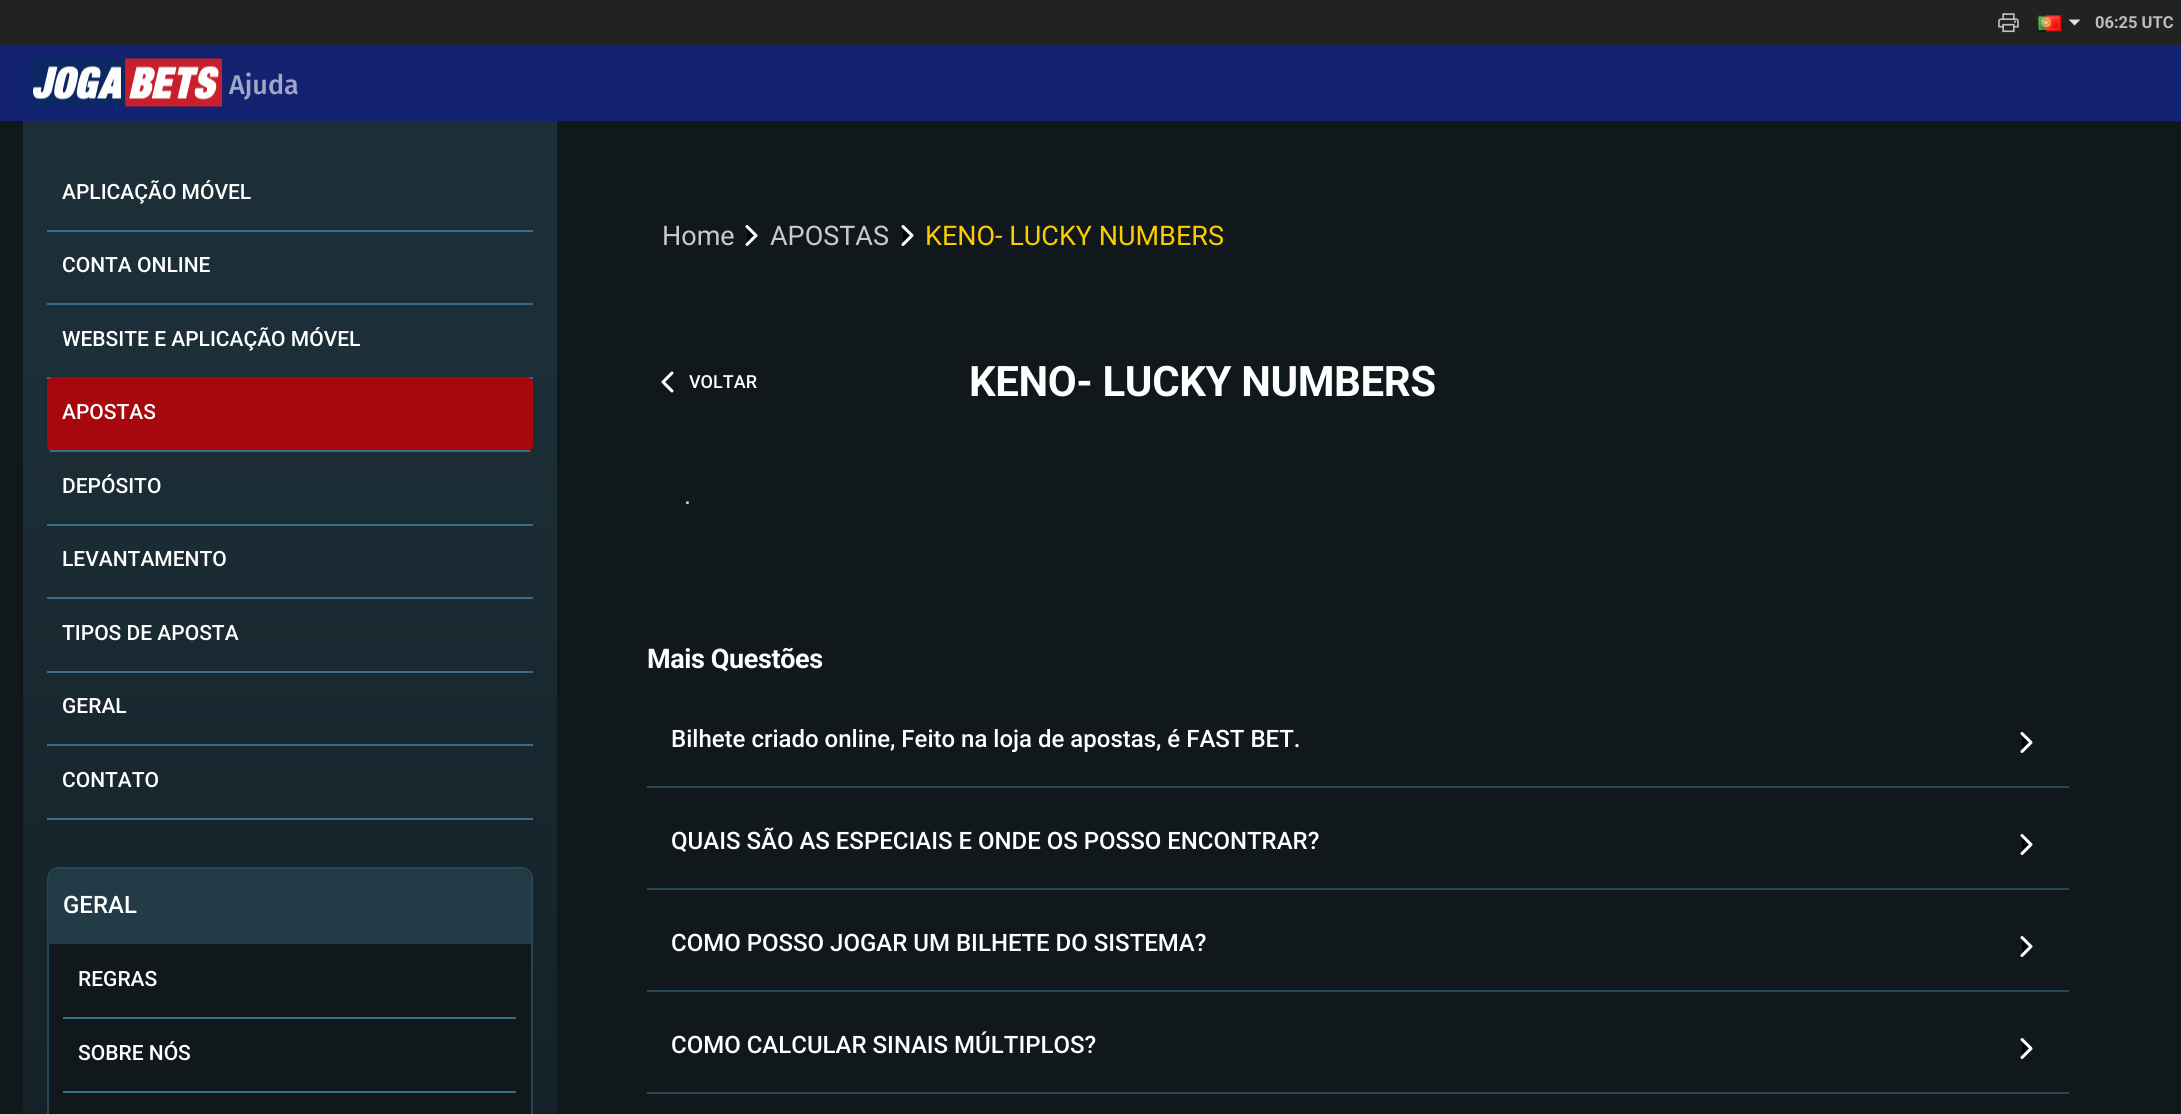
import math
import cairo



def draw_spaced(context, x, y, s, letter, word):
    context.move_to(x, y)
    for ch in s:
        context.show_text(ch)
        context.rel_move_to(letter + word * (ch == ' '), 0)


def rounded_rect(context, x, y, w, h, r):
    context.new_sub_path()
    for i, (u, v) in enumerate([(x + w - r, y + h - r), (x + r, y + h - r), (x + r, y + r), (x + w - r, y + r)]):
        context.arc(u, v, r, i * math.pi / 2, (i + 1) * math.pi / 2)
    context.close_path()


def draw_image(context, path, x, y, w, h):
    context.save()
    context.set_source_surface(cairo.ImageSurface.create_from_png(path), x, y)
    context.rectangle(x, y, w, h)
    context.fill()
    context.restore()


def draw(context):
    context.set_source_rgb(16 / 255, 24 / 255, 28 / 255)
    context.paint()
    context.set_source_rgb(34 / 255, 34 / 255, 34 / 255)
    context.rectangle(0, 0, 2181, 45)
    context.fill()
    draw_image(context, "images/1.png", 1998, 13, 21, 20)
    draw_image(context, "images/2.png", 2037, 15, 24, 17)
    context.set_source_rgb(226 / 255, 226 / 255, 226 / 255)
    context.new_path()
    context.move_to(2068.5, 19.5)
    context.line_to(2080.5, 19.5)
    context.line_to(2074.5, 25.5)
    context.close_path()
    context.fill()
    context.set_source_rgb(20 / 255, 35 / 255, 113 / 255)
    context.rectangle(0, 45, 2181, 76)
    context.fill()
    draw_image(context, "images/3.png", 30, 58, 192, 49)
    gradient = cairo.LinearGradient(289, 120, 290, 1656)
    gradient.add_color_stop_rgba(0.13, 28 / 255, 47 / 255, 56 / 255, 1)
    gradient.add_color_stop_rgba(1, 16 / 255, 24 / 255, 28 / 255, 1)
    context.set_source(gradient)
    context.rectangle(23, 121, 534, 993)
    context.fill()
    context.set_source_rgb(57 / 255, 111 / 255, 133 / 255)
    context.rectangle(47, 230, 486, 2)
    context.fill()
    context.rectangle(47, 303, 486, 2)
    context.fill()
    context.rectangle(47, 377, 486, 2)
    context.fill()
    context.set_source_rgb(167 / 255, 8 / 255, 14 / 255)
    rounded_rect(context, 47, 377, 486, 75, 6)
    context.fill()
    context.set_source_rgb(57 / 255, 111 / 255, 133 / 255)
    context.rectangle(50, 450, 480, 2)
    context.fill()
    context.rectangle(47, 524, 486, 2)
    context.fill()
    context.rectangle(47, 597, 486, 2)
    context.fill()
    context.rectangle(47, 671, 486, 2)
    context.fill()
    context.rectangle(47, 744, 486, 2)
    context.fill()
    context.rectangle(47, 818, 486, 2)
    context.fill()
    context.set_source_rgb(16 / 255, 24 / 255, 28 / 255)
    rounded_rect(context, 48, 868, 484, 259, 11)
    context.fill_preserve()
    context.set_source_rgb(40 / 255, 71 / 255, 85 / 255)
    context.stroke()
    context.set_source_rgb(34 / 255, 59 / 255, 70 / 255)
    context.new_path()
    context.move_to(60, 869)
    context.line_to(519, 869)
    context.curve_to(525.5, 869, 531, 874.5, 531, 881)
    context.line_to(531, 944)
    context.line_to(48, 944)
    context.line_to(48, 881)
    context.curve_to(48, 874.5, 53.5, 869, 60, 869)
    context.close_path()
    context.fill()
    context.set_source_rgb(57 / 255, 111 / 255, 133 / 255)
    context.rectangle(63, 1017, 453, 2)
    context.fill()
    context.rectangle(63, 1091, 453, 2)
    context.fill()
    context.set_source_rgb(0, 0, 0)
    context.new_path()
    context.move_to(747, 244.5)
    context.line_to(756, 235.5)
    context.line_to(747, 226.5)
    context.fill_preserve()
    context.set_source_rgb(1, 1, 1)
    context.set_line_width(3)
    context.set_line_cap(cairo.LineCap.ROUND)
    context.set_line_join(cairo.LineJoin.ROUND)
    context.stroke()
    context.set_source_rgb(0, 0, 0)
    context.new_path()
    context.move_to(903, 244.5)
    context.line_to(912, 235.5)
    context.line_to(903, 226.5)
    context.fill_preserve()
    context.set_source_rgb(1, 1, 1)
    context.stroke()
    context.new_path()
    context.move_to(672, 373)
    context.line_to(663, 382)
    context.line_to(672, 391)
    context.stroke()
    context.set_source_rgb(40 / 255, 71 / 255, 85 / 255)
    context.rectangle(647, 786, 1422, 2)
    context.fill()
    context.set_source_rgb(0, 0, 0)
    context.new_path()
    context.move_to(2022, 751.5)
    context.line_to(2031, 742.5)
    context.line_to(2022, 733.5)
    context.fill_preserve()
    context.set_source_rgb(1, 1, 1)
    context.stroke()
    context.set_source_rgb(40 / 255, 71 / 255, 85 / 255)
    context.rectangle(647, 888, 1422, 2)
    context.fill()
    context.set_source_rgb(0, 0, 0)
    context.new_path()
    context.move_to(2022, 853.5)
    context.line_to(2031, 844.5)
    context.line_to(2022, 835.5)
    context.fill_preserve()
    context.set_source_rgb(1, 1, 1)
    context.stroke()
    context.set_source_rgb(40 / 255, 71 / 255, 85 / 255)
    context.rectangle(647, 990, 1422, 2)
    context.fill()
    context.set_source_rgb(0, 0, 0)
    context.new_path()
    context.move_to(2022, 955.5)
    context.line_to(2031, 946.5)
    context.line_to(2022, 937.5)
    context.fill_preserve()
    context.set_source_rgb(1, 1, 1)
    context.stroke()
    context.set_source_rgb(40 / 255, 71 / 255, 85 / 255)
    context.rectangle(647, 1092, 1422, 2)
    context.fill()
    context.set_source_rgb(0, 0, 0)
    context.new_path()
    context.move_to(2022, 1057.5)
    context.line_to(2031, 1048.5)
    context.line_to(2022, 1039.5)
    context.fill_preserve()
    context.set_source_rgb(1, 1, 1)
    context.stroke()
    context.select_font_face("Roboto", cairo.FontSlant.NORMAL, cairo.FontWeight.BOLD)
    context.set_font_size(16.5)
    context.set_source_rgb(189 / 255, 189 / 255, 189 / 255)
    context.move_to(2095, 28)
    context.show_text("06:25 UTC")
    context.select_font_face("Fira Sans Medium")
    context.set_font_size(27)
    context.set_source_rgb(161 / 255, 167 / 255, 198 / 255)
    context.move_to(229, 94)
    context.show_text("Ajuda")
    context.select_font_face("Roboto Medium")
    context.set_font_size(21)
    context.set_source_rgb(1, 1, 1)
    context.move_to(62, 199)
    context.show_text("APLICAÇÃO MÓVEL")
    context.move_to(62, 272)
    context.show_text("CONTA ONLINE")
    context.move_to(62, 346)
    context.show_text("WEBSITE E APLICAÇÃO MÓVEL")
    context.move_to(62, 419)
    context.show_text("APOSTAS")
    context.move_to(62, 493)
    context.show_text("DEPÓSITO")
    context.move_to(62, 566)
    context.show_text("LEVANTAMENTO")
    context.move_to(62, 640)
    context.show_text("TIPOS DE APOSTA")
    context.move_to(62, 713)
    context.show_text("GERAL")
    context.move_to(62, 787)
    context.show_text("CONTATO")
    context.set_font_size(24)
    context.move_to(63, 913)
    context.show_text("GERAL")
    context.set_font_size(21)
    context.move_to(78, 986)
    context.show_text("REGRAS")
    context.move_to(78, 1060)
    context.show_text("SOBRE NÓS")
    context.select_font_face("Roboto")
    context.set_font_size(27)
    context.set_source_rgb(202 / 255, 202 / 255, 202 / 255)
    context.move_to(662, 245)
    context.show_text("Home")
    context.move_to(770, 245)
    context.show_text("APOSTAS")
    context.set_source_rgb(250 / 255, 204 / 255, 1 / 255)
    context.move_to(925, 245)
    context.show_text("KENO- LUCKY NUMBERS")
    context.select_font_face("Roboto Medium")
    context.set_font_size(18)
    context.set_source_rgb(1, 1, 1)
    context.move_to(689, 388)
    context.show_text("VOLTAR")
    context.select_font_face("Roboto", cairo.FontSlant.NORMAL, cairo.FontWeight.BOLD)
    context.set_font_size(42)
    draw_spaced(context, 969, 396, "KENO- LUCKY NUMBERS", -0.4, 0)
    context.select_font_face("Roboto")
    context.set_font_size(27)
    context.set_source_rgb(202 / 255, 202 / 255, 202 / 255)
    context.move_to(684, 504)
    context.show_text(".")
    context.select_font_face("Roboto", cairo.FontSlant.NORMAL, cairo.FontWeight.BOLD)
    context.set_source_rgb(1, 1, 1)
    draw_spaced(context, 647, 668, "Mais Questões", -0.4, 0)
    context.select_font_face("Roboto Medium")
    context.set_font_size(24)
    context.move_to(671, 747)
    context.show_text("Bilhete criado online, Feito na loja de apostas, é FAST BET.")
    context.move_to(671, 849)
    context.show_text("QUAIS SÃO AS ESPECIAIS E ONDE OS POSSO ENCONTRAR?")
    context.move_to(671, 951)
    context.show_text("COMO POSSO JOGAR UM BILHETE DO SISTEMA?")
    context.move_to(671, 1053)
    context.show_text("COMO CALCULAR SINAIS MÚLTIPLOS?")


surface = cairo.ImageSurface(cairo.Format.RGB24, 2181, 1114)
context = cairo.Context(surface)
options = cairo.FontOptions()
options.set_hint_metrics(cairo.HintMetrics.OFF)
options.set_hint_style(cairo.HintStyle.NONE)
context.set_font_options(options)
context.set_miter_limit(4)
draw(context)
surface.write_to_png("out.png")
